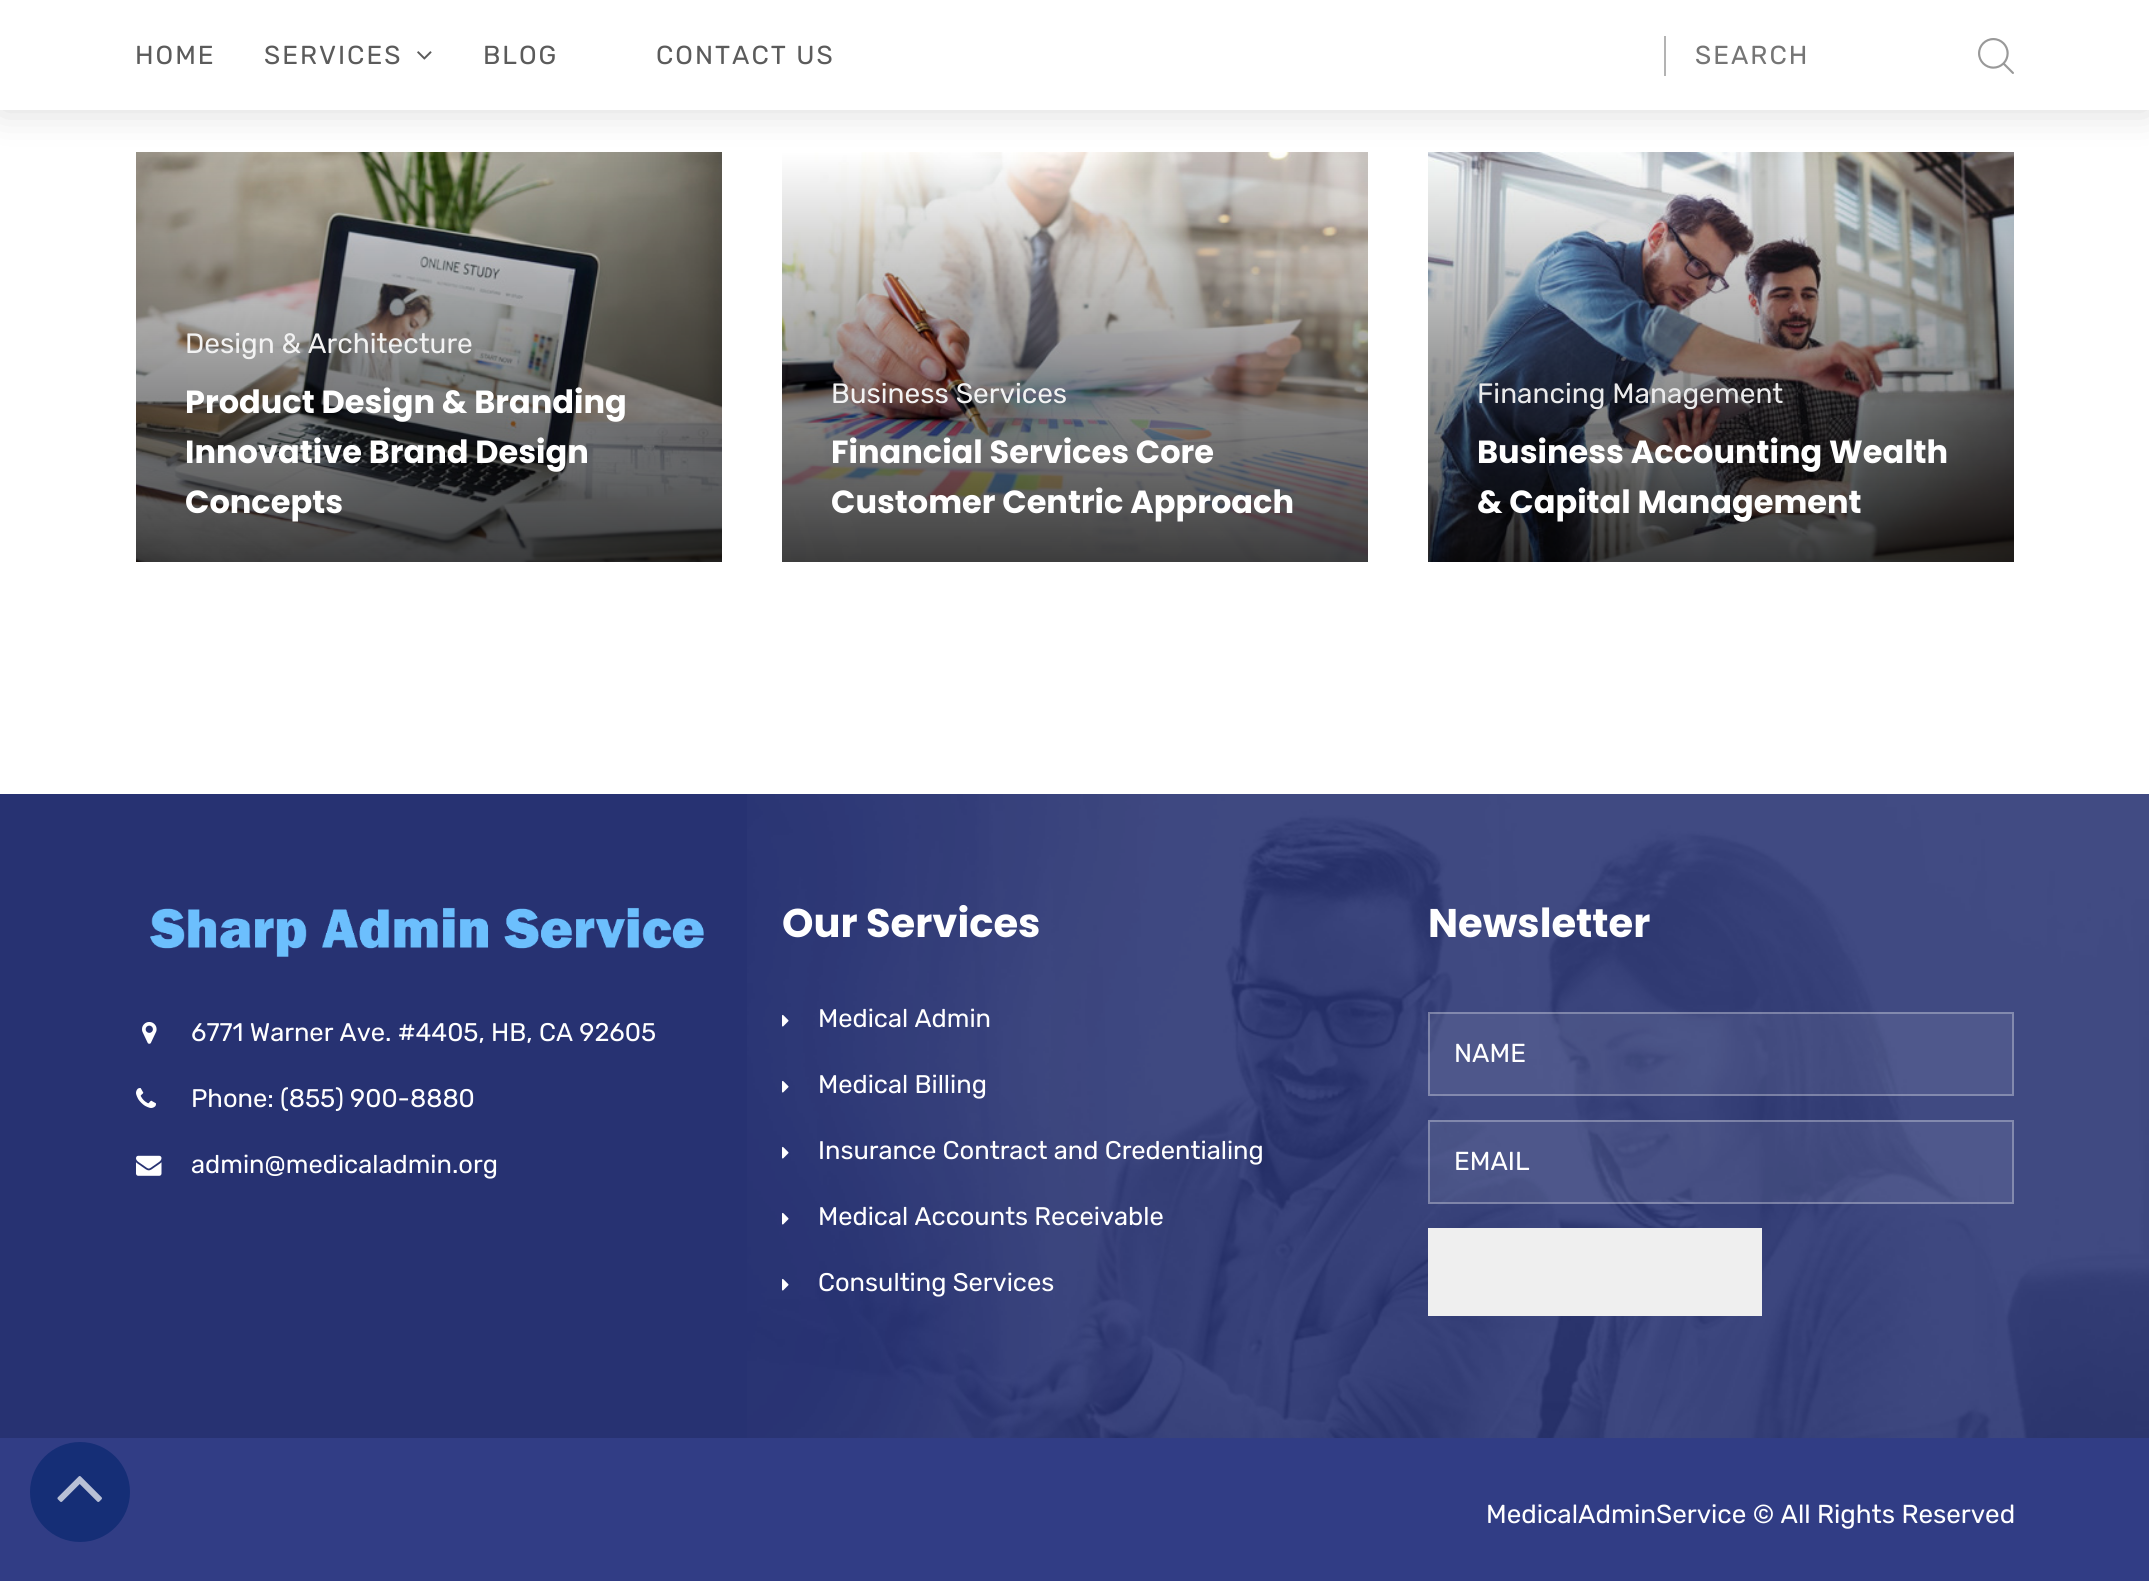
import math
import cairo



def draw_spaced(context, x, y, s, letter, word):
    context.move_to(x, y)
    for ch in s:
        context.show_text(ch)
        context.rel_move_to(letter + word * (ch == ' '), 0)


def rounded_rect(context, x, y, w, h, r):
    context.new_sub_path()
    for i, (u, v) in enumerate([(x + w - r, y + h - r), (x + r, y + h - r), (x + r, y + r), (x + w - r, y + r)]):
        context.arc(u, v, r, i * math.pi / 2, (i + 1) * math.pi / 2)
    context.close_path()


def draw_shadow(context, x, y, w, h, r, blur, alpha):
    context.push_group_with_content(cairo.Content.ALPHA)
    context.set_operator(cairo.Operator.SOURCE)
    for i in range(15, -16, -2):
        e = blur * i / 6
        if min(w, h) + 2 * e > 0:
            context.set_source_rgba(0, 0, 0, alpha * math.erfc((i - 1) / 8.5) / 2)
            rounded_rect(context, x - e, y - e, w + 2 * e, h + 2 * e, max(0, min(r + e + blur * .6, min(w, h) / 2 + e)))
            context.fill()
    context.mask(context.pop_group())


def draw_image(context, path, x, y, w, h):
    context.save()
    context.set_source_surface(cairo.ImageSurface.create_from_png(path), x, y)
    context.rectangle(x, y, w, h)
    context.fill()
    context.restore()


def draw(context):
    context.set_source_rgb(1, 1, 1)
    context.paint()
    draw_image(context, "images/3.png", 136, 152, 586, 410)
    draw_image(context, "images/4.png", 782, 152, 586, 410)
    draw_image(context, "images/5.png", 1428, 152, 586, 410)
    context.set_source_rgb(0, 0, 0)
    draw_shadow(context, 0, 0, 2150, 110, 0, 20, 0.15)
    context.set_source_rgb(1, 1, 1)
    context.rectangle(0, 0, 2149, 110)
    context.fill()
    draw_image(context, "images/1.png", 417, 51, 15, 9)
    context.set_source_rgb(179 / 255, 179 / 255, 179 / 255)
    context.rectangle(1664, 36, 2, 40)
    context.fill()
    draw_image(context, "images/2.png", 1978, 38, 36, 36)
    context.set_source_rgb(49 / 255, 61 / 255, 133 / 255)
    context.rectangle(0, 1438, 2149, 143)
    context.fill()
    context.set_source_rgb(21 / 255, 46 / 255, 118 / 255)
    context.arc(80, 1492, 50, 0, 2 * math.pi)
    context.fill()
    draw_image(context, "images/6.png", 57, 1476, 45, 26)
    context.set_source_rgb(39 / 255, 50 / 255, 114 / 255)
    context.rectangle(0, 794, 2149, 644)
    context.fill()
    draw_image(context, "images/7.png", 747, 794, 1402, 644)
    draw_image(context, "images/8.png", 150, 907, 554, 50)
    draw_image(context, "images/9.png", 142, 1022, 15, 22)
    draw_image(context, "images/10.png", 136, 1088, 20, 20)
    draw_image(context, "images/11.png", 136, 1155, 26, 21)
    draw_image(context, "images/12.png", 782, 1014, 7, 13)
    draw_image(context, "images/13.png", 782, 1080, 7, 13)
    draw_image(context, "images/14.png", 782, 1146, 7, 13)
    draw_image(context, "images/15.png", 782, 1212, 7, 13)
    draw_image(context, "images/16.png", 782, 1278, 7, 13)
    context.set_source_rgba(1, 1, 1, 0.08)
    context.rectangle(1428, 1012, 586, 84)
    context.fill()
    context.rectangle(1429, 1013, 584, 82)
    context.set_source_rgba(1, 1, 1, 0.3)
    context.stroke()
    context.set_source_rgba(1, 1, 1, 0.08)
    context.rectangle(1428, 1120, 586, 84)
    context.fill()
    context.rectangle(1429, 1121, 584, 82)
    context.set_source_rgba(1, 1, 1, 0.3)
    context.stroke()
    context.set_source_rgb(239 / 255, 239 / 255, 239 / 255)
    context.rectangle(1428, 1228, 334, 88)
    context.fill()
    context.select_font_face("Rubik Light")
    context.set_font_size(26)
    context.set_source_rgb(91 / 255, 91 / 255, 91 / 255)
    draw_spaced(context, 135, 64, "HOME", 2, 0)
    draw_spaced(context, 264, 64, "SERVICES", 2, 0)
    draw_spaced(context, 483, 64, "BLOG", 2, 0)
    draw_spaced(context, 656, 64, "CONTACT US", 2, 0)
    context.set_source_rgb(117 / 255, 117 / 255, 117 / 255)
    draw_spaced(context, 1695, 64, "SEARCH", 2, 0)
    context.set_font_size(28)
    context.set_source_rgb(242 / 255, 242 / 255, 242 / 255)
    context.move_to(185, 353)
    context.show_text("Design & Architecture")
    context.select_font_face("Poppins", cairo.FontSlant.NORMAL, cairo.FontWeight.BOLD)
    context.set_font_size(32)
    context.set_source_rgb(1, 1, 1)
    context.move_to(185, 413)
    context.show_text("Product Design & Branding")
    context.move_to(185, 463)
    context.show_text("Innovative Brand Design")
    context.move_to(185, 513)
    context.show_text("Concepts")
    context.select_font_face("Rubik Light")
    context.set_font_size(28)
    context.set_source_rgb(242 / 255, 242 / 255, 242 / 255)
    context.move_to(831, 403)
    context.show_text("Business Services")
    context.select_font_face("Poppins", cairo.FontSlant.NORMAL, cairo.FontWeight.BOLD)
    context.set_font_size(32)
    context.set_source_rgb(1, 1, 1)
    context.move_to(831, 463)
    context.show_text("Financial Services Core")
    context.move_to(831, 513)
    context.show_text("Customer Centric Approach")
    context.select_font_face("Rubik Light")
    context.set_font_size(28)
    context.set_source_rgb(234 / 255, 234 / 255, 235 / 255)
    context.move_to(1477, 403)
    context.show_text("Financing Management")
    context.select_font_face("Poppins", cairo.FontSlant.NORMAL, cairo.FontWeight.BOLD)
    context.set_font_size(32)
    context.set_source_rgb(1, 1, 1)
    context.move_to(1477, 463)
    context.show_text("Business Accounting Wealth")
    context.move_to(1477, 513)
    context.show_text("& Capital Management")
    context.select_font_face("Rubik Light")
    context.set_font_size(25.5)
    context.move_to(191, 1041)
    context.show_text("6771 Warner Ave. #4405, HB, CA 92605")
    context.move_to(191, 1107)
    context.show_text("Phone: (855) 900-8880")
    context.move_to(191, 1173)
    context.show_text("admin@medicaladmin.org")
    context.select_font_face("Poppins", cairo.FontSlant.NORMAL, cairo.FontWeight.BOLD)
    context.set_font_size(40)
    context.move_to(782, 937)
    context.show_text("Our Services")
    context.select_font_face("Rubik Light")
    context.set_font_size(25.5)
    context.move_to(818, 1027)
    context.show_text("Medical Admin")
    context.move_to(818, 1093)
    context.show_text("Medical Billing")
    context.move_to(818, 1159)
    context.show_text("Insurance Contract and Credentialing")
    context.move_to(818, 1225)
    context.show_text("Medical Accounts Receivable")
    context.move_to(818, 1291)
    context.show_text("Consulting Services")
    context.select_font_face("Poppins", cairo.FontSlant.NORMAL, cairo.FontWeight.BOLD)
    context.set_font_size(40)
    context.move_to(1428, 937)
    context.show_text("Newsletter")
    context.select_font_face("Rubik Light")
    context.set_font_size(26)
    context.move_to(1454, 1062)
    context.show_text("NAME")
    context.move_to(1454, 1170)
    context.show_text("EMAIL")
    context.move_to(1486, 1523)
    context.show_text("MedicalAdminService © All Rights Reserved")


surface = cairo.ImageSurface(cairo.Format.RGB24, 2149, 1581)
context = cairo.Context(surface)
options = cairo.FontOptions()
options.set_hint_metrics(cairo.HintMetrics.OFF)
options.set_hint_style(cairo.HintStyle.NONE)
context.set_font_options(options)
context.set_miter_limit(4)
draw(context)
surface.write_to_png("out.png")
